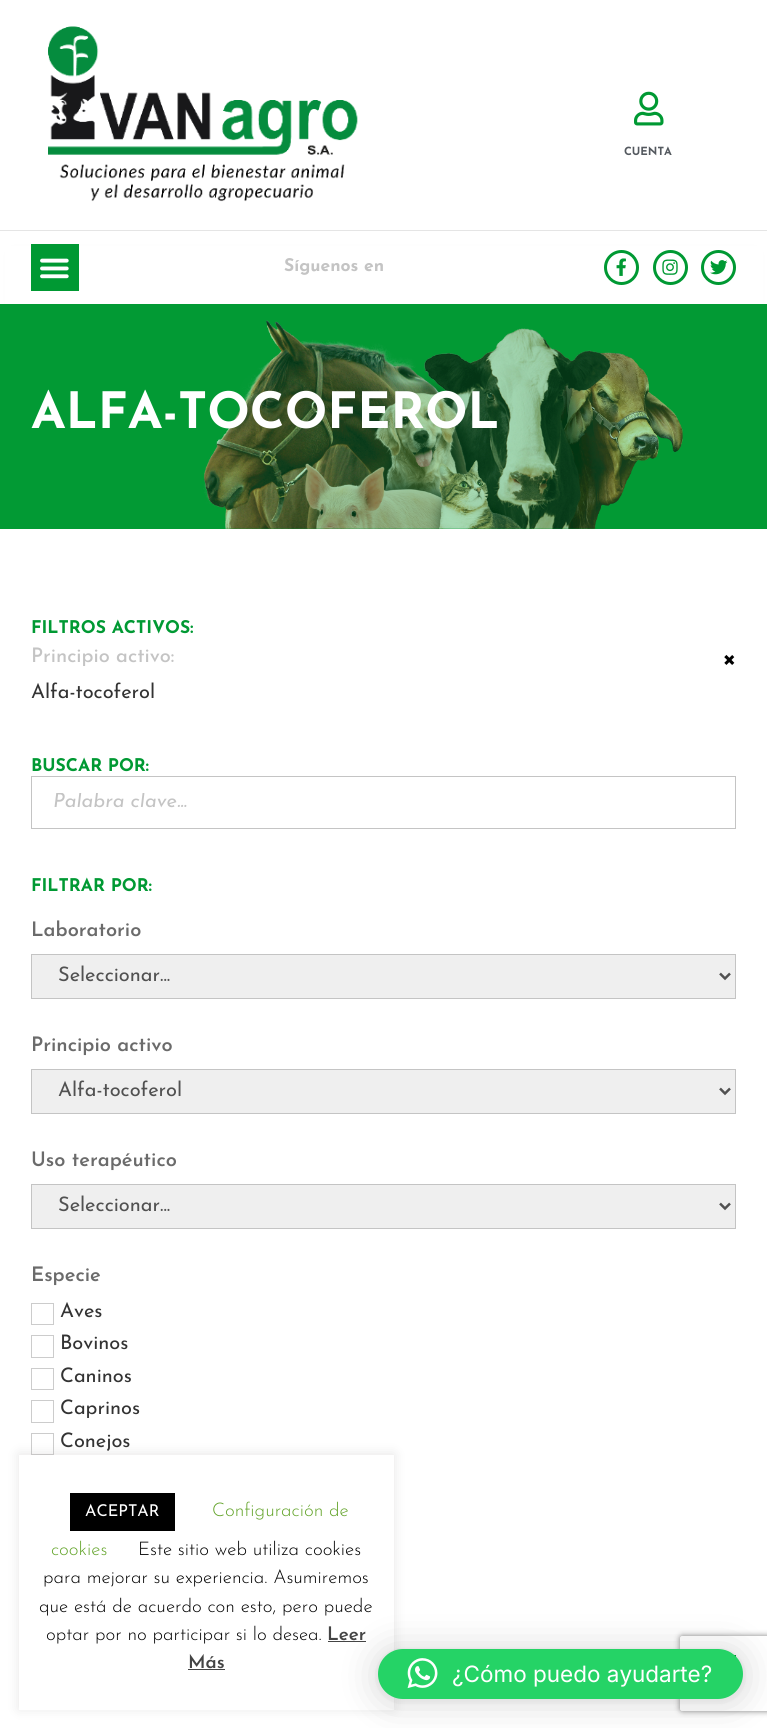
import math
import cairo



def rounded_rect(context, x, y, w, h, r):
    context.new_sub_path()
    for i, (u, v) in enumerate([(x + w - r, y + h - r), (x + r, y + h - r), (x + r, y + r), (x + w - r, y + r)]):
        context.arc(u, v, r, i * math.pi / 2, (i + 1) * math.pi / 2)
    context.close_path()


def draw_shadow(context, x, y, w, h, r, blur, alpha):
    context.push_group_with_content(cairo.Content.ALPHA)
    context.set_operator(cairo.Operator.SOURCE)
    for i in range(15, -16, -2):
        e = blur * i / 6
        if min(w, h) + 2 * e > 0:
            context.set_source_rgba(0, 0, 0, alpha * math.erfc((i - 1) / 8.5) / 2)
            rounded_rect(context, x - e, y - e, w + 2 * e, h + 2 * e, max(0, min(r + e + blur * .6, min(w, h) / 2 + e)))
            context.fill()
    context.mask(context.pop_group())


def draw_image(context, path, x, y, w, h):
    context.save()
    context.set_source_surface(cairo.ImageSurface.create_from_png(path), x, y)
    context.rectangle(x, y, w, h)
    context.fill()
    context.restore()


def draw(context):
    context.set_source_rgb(1, 1, 1)
    context.paint()
    draw_image(context, "images/1.png", 48, 26, 310, 176)
    draw_image(context, "images/2.png", 634, 91, 30, 35)
    context.set_source_rgb(0, 0, 0)
    draw_shadow(context, 14, 255, 740, 46, 0, 6, 0.16)
    context.set_source_rgb(1, 1, 1)
    context.rectangle(5, 246, 758, 58)
    context.fill()
    context.set_source_rgb(229 / 255, 229 / 255, 229 / 255)
    context.rectangle(0, 230, 767, 1)
    context.fill()
    context.set_source_rgb(0, 153 / 255, 51 / 255)
    context.rectangle(31, 244, 48, 47)
    context.fill()
    draw_image(context, "images/3.png", 40, 258, 29, 21)
    context.arc(621.5, 267.5, 16, 0, 2 * math.pi)
    context.set_line_width(3)
    context.stroke()
    draw_image(context, "images/4.png", 616, 258, 10, 18)
    context.arc(670.5, 267.5, 16, 0, 2 * math.pi)
    context.stroke()
    draw_image(context, "images/5.png", 662, 259, 16, 16)
    context.arc(718.5, 267.5, 16, 0, 2 * math.pi)
    context.stroke()
    draw_image(context, "images/6.png", 710, 260, 18, 15)
    context.set_source_rgba(0, 153 / 255, 51 / 255, 0.99)
    context.rectangle(0, 304, 767, 225)
    context.fill()
    draw_image(context, "images/7.png", 203, 320, 480, 209)
    context.rectangle(31.5, 776.5, 704, 52)
    context.set_source_rgb(196 / 255, 196 / 255, 196 / 255)
    context.set_line_width(1)
    context.stroke()
    context.set_source_rgb(239 / 255, 239 / 255, 239 / 255)
    context.rectangle(31.5, 954.5, 704, 44)
    context.fill_preserve()
    context.set_source_rgb(196 / 255, 196 / 255, 196 / 255)
    context.stroke()
    context.new_path()
    context.move_to(720, 973.5)
    context.line_to(725, 978.5)
    context.line_to(730, 973.5)
    context.set_source_rgb(81 / 255, 81 / 255, 81 / 255)
    context.set_line_width(2.5)
    context.stroke()
    context.set_source_rgb(239 / 255, 239 / 255, 239 / 255)
    context.rectangle(31.5, 1069.5, 704, 44)
    context.fill_preserve()
    context.set_source_rgb(196 / 255, 196 / 255, 196 / 255)
    context.set_line_width(1)
    context.stroke()
    context.new_path()
    context.move_to(720, 1088.5)
    context.line_to(725, 1093.5)
    context.line_to(730, 1088.5)
    context.set_source_rgb(81 / 255, 81 / 255, 81 / 255)
    context.set_line_width(2.5)
    context.stroke()
    context.set_source_rgb(239 / 255, 239 / 255, 239 / 255)
    context.rectangle(31.5, 1184.5, 704, 44)
    context.fill_preserve()
    context.set_source_rgb(196 / 255, 196 / 255, 196 / 255)
    context.set_line_width(1)
    context.stroke()
    context.new_path()
    context.move_to(720, 1203.5)
    context.line_to(725, 1208.5)
    context.line_to(730, 1203.5)
    context.set_source_rgb(81 / 255, 81 / 255, 81 / 255)
    context.set_line_width(2.5)
    context.stroke()
    context.rectangle(31.5, 1303.5, 22, 21)
    context.set_source_rgb(204 / 255, 204 / 255, 204 / 255)
    context.set_line_width(1)
    context.stroke()
    context.rectangle(31.5, 1335.5, 22, 22)
    context.stroke()
    context.rectangle(31.5, 1368.5, 22, 21)
    context.stroke()
    context.rectangle(31.5, 1400.5, 22, 22)
    context.stroke()
    context.rectangle(31.5, 1433.5, 22, 21)
    context.stroke()
    context.set_source_rgb(0, 153 / 255, 51 / 255)
    context.rectangle(734, 1655, 2, 2)
    context.fill()
    context.set_source_rgb(172 / 255, 171 / 255, 171 / 255)
    draw_shadow(context, 19, 1454, 375, 255, 0, 6, 0.3)
    context.set_source_rgb(1, 1, 1)
    context.rectangle(19, 1455, 375, 255)
    context.fill()
    context.set_source_rgb(0, 0, 0)
    context.rectangle(70, 1493, 105, 38)
    context.fill()
    context.set_source_rgb(68 / 255, 68 / 255, 68 / 255)
    context.rectangle(328, 1641, 38, 1)
    context.fill()
    context.rectangle(188, 1669, 37, 1)
    context.fill()
    context.set_source_rgb(0, 0, 0)
    draw_shadow(context, 378, 1651, 365, 50, 25, 20, 0.16)
    draw_shadow(context, 378, 1650, 365, 50, 25, 4, 0.06)
    context.save()
    context.set_fill_rule(cairo.FillRule.EVEN_ODD)
    context.new_path()
    context.move_to(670, 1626)
    context.line_to(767, 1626)
    context.line_to(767, 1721)
    context.line_to(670, 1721)
    context.close_path()
    context.move_to(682.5, 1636)
    context.line_to(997.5, 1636)
    context.curve_to(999, 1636, 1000, 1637, 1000, 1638.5)
    context.line_to(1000, 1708.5)
    context.curve_to(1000, 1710, 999, 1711, 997.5, 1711)
    context.line_to(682.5, 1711)
    context.curve_to(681, 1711, 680, 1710, 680, 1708.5)
    context.line_to(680, 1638.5)
    context.curve_to(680, 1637, 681, 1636, 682.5, 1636)
    context.close_path()
    context.clip()
    context.set_source_rgb(128 / 255, 128 / 255, 128 / 255)
    draw_shadow(context, 680, 1636, 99, 75, 2.5, 3, 1)
    context.restore()
    context.set_source_rgb(37 / 255, 211 / 255, 102 / 255)
    rounded_rect(context, 378, 1649, 365, 50, 25)
    context.fill()
    draw_image(context, "images/8.png", 407, 1658, 31, 31)
    context.select_font_face("Josefin Sans", cairo.FontSlant.NORMAL, cairo.FontWeight.BOLD)
    context.set_font_size(11.25)
    context.set_source_rgb(84 / 255, 89 / 255, 95 / 255)
    context.move_to(624, 155)
    context.show_text("CUENTA")
    context.set_font_size(17.5)
    context.set_source_rgb(196 / 255, 196 / 255, 196 / 255)
    context.move_to(284, 271)
    context.show_text("Síguenos en")
    context.set_font_size(50)
    context.set_source_rgb(1, 1, 1)
    context.move_to(31, 428)
    context.show_text("ALFA-TOCOFEROL")
    context.set_font_size(17.5)
    context.set_source_rgb(0, 153 / 255, 51 / 255)
    context.move_to(31, 633)
    context.show_text("FILTROS ACTIVOS:")
    context.select_font_face("Josefin Sans Medium")
    context.set_font_size(20)
    context.set_source_rgb(196 / 255, 196 / 255, 196 / 255)
    context.move_to(31, 662)
    context.show_text("Principio activo:")
    context.select_font_face("Josefin Sans")
    context.set_font_size(30)
    context.set_source_rgb(0, 0, 0)
    context.move_to(721, 665)
    context.show_text("×")
    context.set_font_size(20)
    context.set_source_rgb(51 / 255, 51 / 255, 51 / 255)
    context.move_to(31, 698)
    context.show_text("Alfa-tocoferol")
    context.select_font_face("Josefin Sans", cairo.FontSlant.NORMAL, cairo.FontWeight.BOLD)
    context.set_font_size(17.5)
    context.set_source_rgb(0, 153 / 255, 51 / 255)
    context.move_to(31, 771)
    context.show_text("BUSCAR POR:")
    context.save()
    context.rectangle(53, 793, 662, 20)
    context.clip()
    context.select_font_face("Josefin Sans", cairo.FontSlant.ITALIC)
    context.set_font_size(20)
    context.set_source_rgb(196 / 255, 196 / 255, 196 / 255)
    context.move_to(53, 807)
    context.show_text("Palabra clave...")
    context.restore()
    context.move_to(31, 891)
    context.show_text("FILTRAR POR:")
    context.select_font_face("Josefin Sans SemiBold")
    context.set_font_size(20)
    context.set_source_rgb(107 / 255, 107 / 255, 107 / 255)
    context.move_to(31, 936)
    context.show_text("Laboratorio")
    context.select_font_face("Josefin Sans")
    context.set_source_rgb(81 / 255, 81 / 255, 81 / 255)
    context.move_to(58, 981)
    context.show_text("Seleccionar...")
    context.select_font_face("Josefin Sans SemiBold")
    context.set_source_rgb(107 / 255, 107 / 255, 107 / 255)
    context.move_to(31, 1051)
    context.show_text("Principio activo")
    context.select_font_face("Josefin Sans")
    context.set_source_rgb(81 / 255, 81 / 255, 81 / 255)
    context.move_to(58, 1096)
    context.show_text("Alfa-tocoferol")
    context.select_font_face("Josefin Sans SemiBold")
    context.set_source_rgb(107 / 255, 107 / 255, 107 / 255)
    context.move_to(31, 1166)
    context.show_text("Uso terapéutico")
    context.select_font_face("Josefin Sans")
    context.set_source_rgb(81 / 255, 81 / 255, 81 / 255)
    context.move_to(58, 1211)
    context.show_text("Seleccionar...")
    context.select_font_face("Josefin Sans SemiBold")
    context.set_source_rgb(107 / 255, 107 / 255, 107 / 255)
    context.move_to(31, 1281)
    context.show_text("Especie")
    context.select_font_face("Josefin Sans")
    context.set_source_rgb(51 / 255, 51 / 255, 51 / 255)
    context.move_to(60, 1317)
    context.show_text("Aves")
    context.move_to(60, 1349)
    context.show_text("Bovinos")
    context.move_to(60, 1382)
    context.show_text("Caninos")
    context.move_to(60, 1414)
    context.show_text("Caprinos")
    context.move_to(60, 1447)
    context.show_text("Conejos")
    context.set_font_size(16.25)
    context.set_source_rgb(1, 1, 1)
    context.move_to(85, 1516)
    context.show_text("ACEPTAR")
    context.select_font_face("Josefin Sans Light")
    context.set_font_size(18.75)
    context.set_source_rgb(98 / 255, 163 / 255, 41 / 255)
    context.move_to(212, 1516)
    context.show_text("Configuración de")
    context.move_to(51, 1555)
    context.show_text("cookies")
    context.set_source_rgb(0, 0, 0)
    context.move_to(138, 1555)
    context.show_text("Este sitio web utiliza cookies")
    context.move_to(43, 1583)
    context.show_text("para mejorar su experiencia. Asumiremos")
    context.move_to(39, 1612)
    context.show_text("que está de acuerdo con esto, pero puede")
    context.move_to(46, 1640)
    context.show_text("optar por no participar si lo desea.")
    context.select_font_face("Josefin Sans SemiBold")
    context.set_source_rgb(68 / 255, 68 / 255, 68 / 255)
    context.move_to(327, 1640)
    context.show_text("Leer")
    context.move_to(188, 1668)
    context.show_text("Más")
    context.select_font_face("Inter")
    context.set_font_size(22.5)
    context.set_source_rgb(1, 1, 1)
    context.move_to(452, 1682)
    context.show_text("¿Cómo puedo ayudarte?")


surface = cairo.ImageSurface(cairo.Format.RGB24, 767, 1728)
context = cairo.Context(surface)
options = cairo.FontOptions()
options.set_hint_metrics(cairo.HintMetrics.OFF)
options.set_hint_style(cairo.HintStyle.NONE)
context.set_font_options(options)
context.set_miter_limit(4)
draw(context)
surface.write_to_png("out.png")
